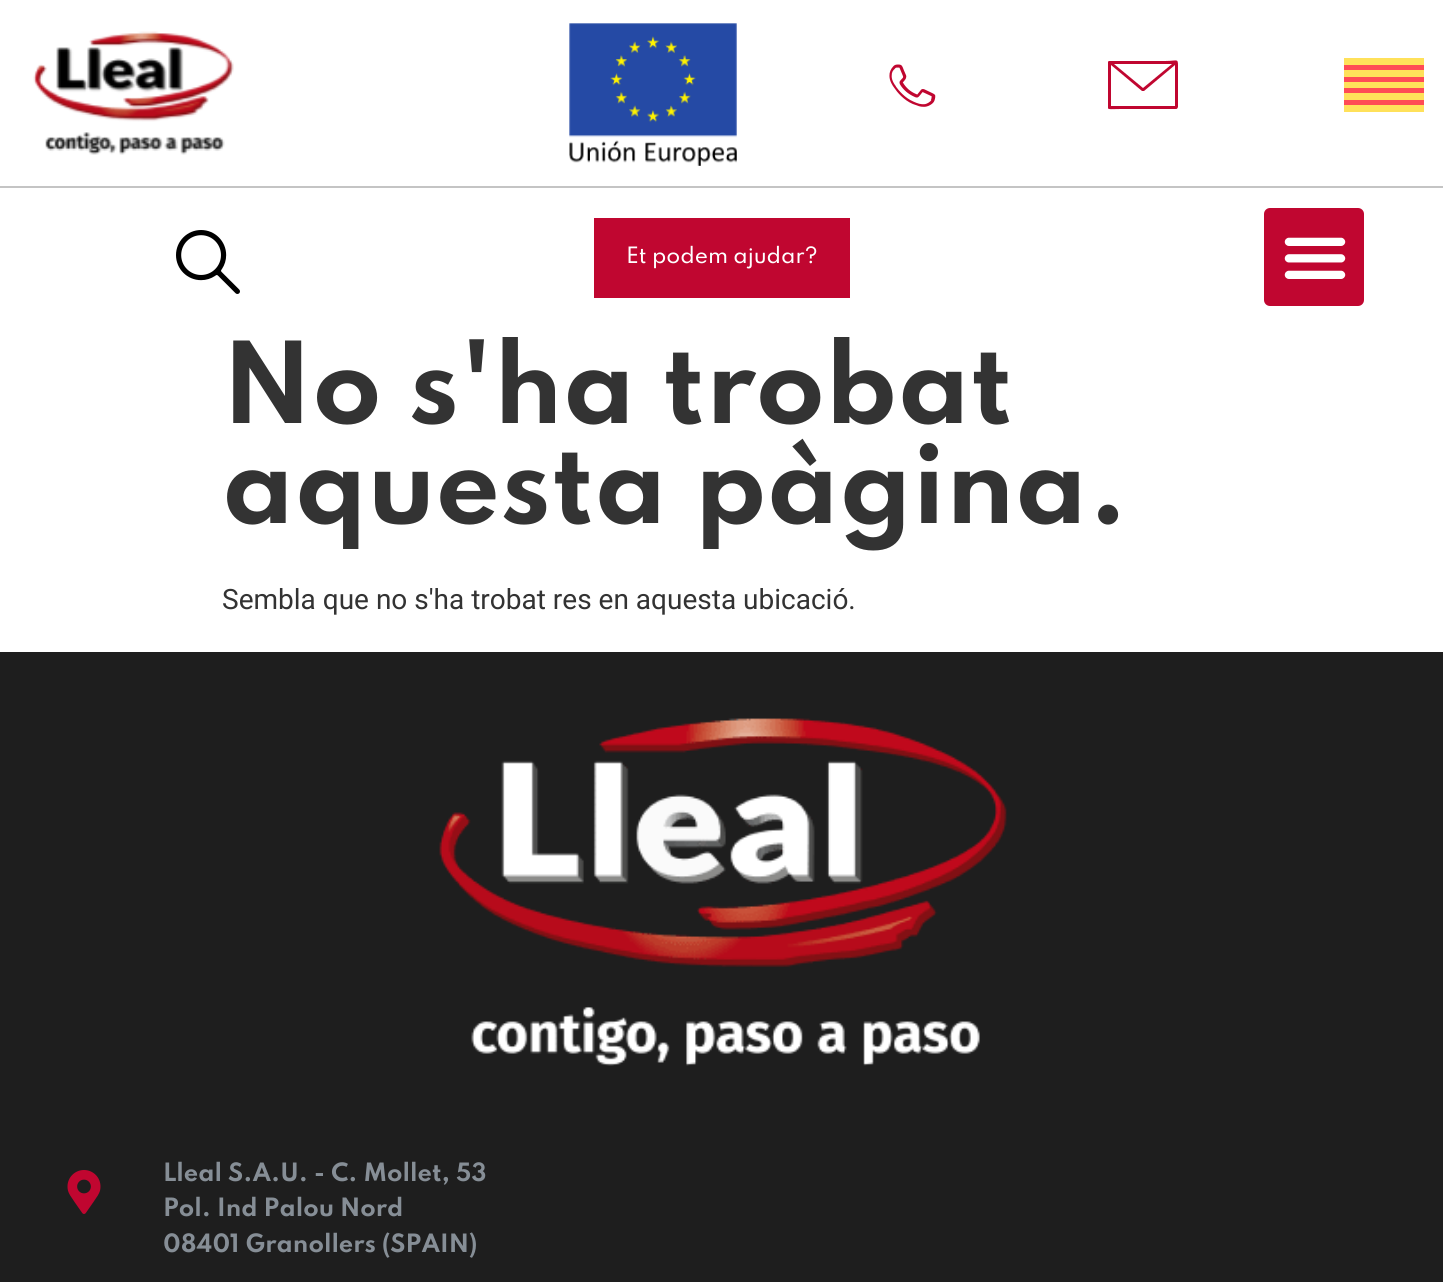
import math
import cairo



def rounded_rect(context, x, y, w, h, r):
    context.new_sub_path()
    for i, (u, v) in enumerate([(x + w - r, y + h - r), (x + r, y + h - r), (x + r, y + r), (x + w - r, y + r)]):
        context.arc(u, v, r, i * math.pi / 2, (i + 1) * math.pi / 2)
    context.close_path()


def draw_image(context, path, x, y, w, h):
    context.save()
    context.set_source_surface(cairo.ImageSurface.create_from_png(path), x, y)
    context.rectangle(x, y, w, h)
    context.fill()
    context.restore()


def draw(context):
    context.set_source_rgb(1, 1, 1)
    context.paint()
    context.set_source_rgb(196 / 255, 196 / 255, 196 / 255)
    context.rectangle(0, 186, 1443, 2)
    context.fill()
    draw_image(context, "images/1.png", 33, 31, 201, 124)
    draw_image(context, "images/2.png", 569, 23, 168, 143)
    draw_image(context, "images/3.png", 889, 64, 47, 43)
    context.save()
    context.rectangle(1108, 50, 70, 70)
    context.clip()
    context.set_source_rgb(192 / 255, 6 / 255, 48 / 255)
    context.new_path()
    context.move_to(1109, 61)
    context.curve_to(1107, 61, 1108, 67, 1108, 70)
    context.line_to(1108, 93)
    context.curve_to(1108, 112, 1103, 109, 1121, 109)
    context.line_to(1176, 109)
    context.curve_to(1179, 109, 1178, 103, 1178, 100)
    context.line_to(1178, 70)
    context.curve_to(1178, 57, 1179, 61, 1165, 61)
    context.close_path()
    context.move_to(1114, 64)
    context.line_to(1172, 64)
    context.line_to(1143, 88)
    context.close_path()
    context.move_to(1111, 65)
    context.line_to(1142, 91)
    context.curve_to(1143, 91, 1143, 91, 1144, 91)
    context.line_to(1175, 65)
    context.line_to(1175, 106)
    context.line_to(1111, 106)
    context.close_path()
    context.fill()
    context.restore()
    context.set_source_rgb(1, 225 / 255, 90 / 255)
    context.rectangle(1344, 58, 80, 54)
    context.fill()
    context.set_source_rgb(1, 75 / 255, 85 / 255)
    context.set_fill_rule(cairo.FillRule.EVEN_ODD)
    context.new_path()
    context.move_to(1344, 65)
    context.line_to(1424, 65)
    context.line_to(1424, 70)
    context.line_to(1344, 70)
    context.close_path()
    context.move_to(1424, 82)
    context.line_to(1344, 82)
    context.line_to(1344, 77)
    context.line_to(1424, 77)
    context.close_path()
    context.move_to(1344, 88)
    context.line_to(1424, 88)
    context.line_to(1424, 93)
    context.line_to(1344, 93)
    context.close_path()
    context.move_to(1344, 100)
    context.line_to(1424, 100)
    context.line_to(1424, 105)
    context.line_to(1344, 105)
    context.close_path()
    context.fill()
    draw_image(context, "images/4.png", 176, 230, 64, 64)
    context.set_source_rgb(192 / 255, 6 / 255, 48 / 255)
    context.rectangle(594, 218, 256, 80)
    context.fill()
    rounded_rect(context, 1264, 208, 100, 98, 6)
    context.fill()
    draw_image(context, "images/5.png", 1284, 237, 62, 42)
    context.set_source_rgb(30 / 255, 30 / 255, 30 / 255)
    context.rectangle(0, 652, 1443, 630)
    context.fill()
    draw_image(context, "images/6.png", 439, 718, 568, 348)
    draw_image(context, "images/7.png", 67, 1170, 34, 44)
    context.select_font_face("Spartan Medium")
    context.set_font_size(20)
    context.set_source_rgb(1, 1, 1)
    context.move_to(626, 263)
    context.show_text("Et podem ajudar?")
    context.select_font_face("Spartan", cairo.FontSlant.NORMAL, cairo.FontWeight.BOLD)
    context.set_font_size(100)
    context.set_source_rgb(51 / 255, 51 / 255, 51 / 255)
    context.move_to(222, 423)
    context.show_text("No s'ha trobat")
    context.move_to(222, 523)
    context.show_text("aquesta pàgina.")
    context.select_font_face("Roboto")
    context.set_font_size(28)
    context.move_to(222, 609)
    context.show_text("Sembla que no s'ha trobat res en aquesta ubicació.")
    context.select_font_face("Spartan", cairo.FontSlant.NORMAL, cairo.FontWeight.BOLD)
    context.set_font_size(22.4)
    context.set_source_rgb(134 / 255, 142 / 255, 150 / 255)
    context.move_to(163, 1181)
    context.show_text("Lleal S.A.U. - C. Mollet, 53")
    context.move_to(163, 1216)
    context.show_text("Pol. Ind Palou Nord")
    context.move_to(163, 1252)
    context.show_text("08401 Granollers (SPAIN)")


surface = cairo.ImageSurface(cairo.Format.RGB24, 1443, 1282)
context = cairo.Context(surface)
options = cairo.FontOptions()
options.set_hint_metrics(cairo.HintMetrics.OFF)
options.set_hint_style(cairo.HintStyle.NONE)
context.set_font_options(options)
context.set_miter_limit(4)
draw(context)
surface.write_to_png("out.png")
